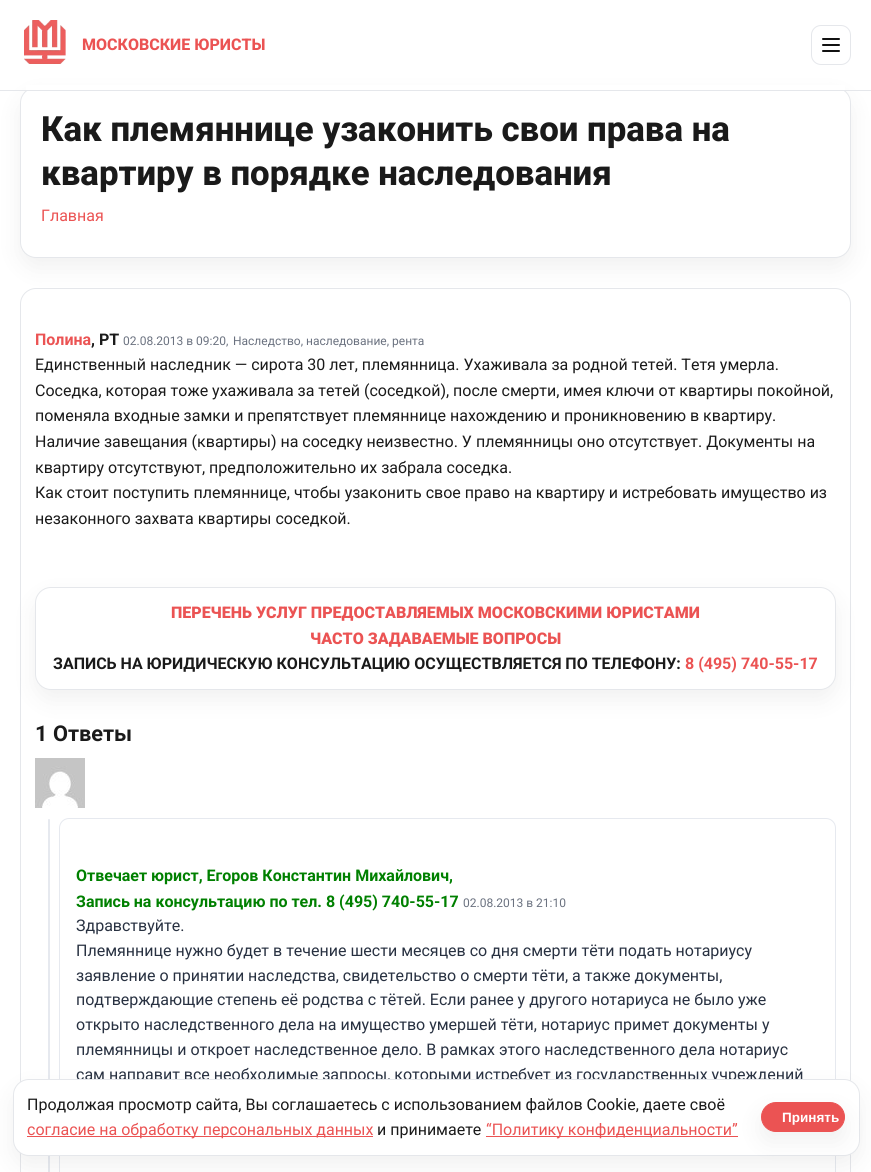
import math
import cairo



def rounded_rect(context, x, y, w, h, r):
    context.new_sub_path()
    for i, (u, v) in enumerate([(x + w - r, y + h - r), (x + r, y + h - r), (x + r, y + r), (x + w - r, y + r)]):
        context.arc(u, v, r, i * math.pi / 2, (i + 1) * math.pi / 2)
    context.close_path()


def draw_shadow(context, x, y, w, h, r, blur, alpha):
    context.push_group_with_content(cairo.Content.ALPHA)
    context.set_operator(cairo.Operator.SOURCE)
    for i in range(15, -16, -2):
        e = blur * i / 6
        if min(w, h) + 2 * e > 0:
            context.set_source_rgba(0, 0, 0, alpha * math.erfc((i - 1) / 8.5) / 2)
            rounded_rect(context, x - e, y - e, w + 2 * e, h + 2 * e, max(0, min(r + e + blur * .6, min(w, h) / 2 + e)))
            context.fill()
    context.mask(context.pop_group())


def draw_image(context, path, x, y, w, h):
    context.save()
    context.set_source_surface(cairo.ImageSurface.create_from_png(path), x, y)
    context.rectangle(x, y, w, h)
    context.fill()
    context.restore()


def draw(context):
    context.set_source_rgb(1, 1, 1)
    context.paint()
    context.set_source_rgb(0, 0, 0)
    draw_shadow(context, 20, 97, 831, 171, 16, 12.5, 0.06)
    context.set_source_rgb(1, 1, 1)
    rounded_rect(context, 20.5, 87.5, 830, 170, 15.5)
    context.fill_preserve()
    context.set_source_rgb(229 / 255, 231 / 255, 235 / 255)
    context.set_line_width(1)
    context.stroke()
    context.set_source_rgb(1, 1, 1)
    context.rectangle(26, 85, 819, 5)
    context.fill()
    context.set_source_rgb(229 / 255, 231 / 255, 235 / 255)
    context.rectangle(0, 90, 871, 1)
    context.fill()
    draw_image(context, "images/1.png", 24, 20, 42, 44)
    rounded_rect(context, 811.5, 25.5, 39, 39, 9.5)
    context.stroke()
    context.set_source_rgb(17 / 255, 17 / 255, 17 / 255)
    rounded_rect(context, 822, 44, 18, 2, 1)
    context.fill()
    rounded_rect(context, 822, 38, 18, 2, 1)
    context.fill()
    rounded_rect(context, 822, 50, 18, 2, 1)
    context.fill()
    rounded_rect(context, 20.5, 288.5, 830, 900, 15.5)
    context.set_source_rgb(229 / 255, 231 / 255, 235 / 255)
    context.stroke()
    context.set_source_rgb(0, 0, 0)
    draw_shadow(context, 35, 597, 801, 103, 16, 12.5, 0.06)
    context.set_source_rgb(1, 1, 1)
    rounded_rect(context, 35.5, 587.5, 800, 102, 15.5)
    context.fill_preserve()
    context.set_source_rgb(229 / 255, 231 / 255, 235 / 255)
    context.stroke()
    draw_image(context, "images/2.png", 35, 758, 50, 50)
    rounded_rect(context, 59.5, 818.5, 776, 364, 9.5)
    context.set_source_rgb(230 / 255, 233 / 255, 239 / 255)
    context.stroke()
    rounded_rect(context, 48, 819, 2, 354, 1)
    context.fill()
    context.set_source_rgb(0, 0, 0)
    draw_shadow(context, 13, 1089, 847, 77, 16, 12.5, 0.06)
    context.select_font_face("Roboto ExtraBold")
    context.set_font_size(16)
    context.set_source_rgb(235 / 255, 83 / 255, 83 / 255)
    context.move_to(82, 50)
    context.show_text("МОСКОВСКИЕ ЮРИСТЫ")
    context.set_font_size(34.8)
    context.set_source_rgb(26 / 255, 26 / 255, 26 / 255)
    context.move_to(41, 141)
    context.show_text("Как племяннице узаконить свои права на")
    context.move_to(41, 185)
    context.show_text("квартиру в порядке наследования")
    context.select_font_face("Roboto")
    context.set_font_size(16)
    context.set_source_rgb(235 / 255, 83 / 255, 83 / 255)
    context.move_to(41, 221)
    context.show_text("Главная")
    context.select_font_face("Roboto", cairo.FontSlant.NORMAL, cairo.FontWeight.BOLD)
    context.move_to(35, 345)
    context.show_text("Полина")
    context.set_source_rgb(26 / 255, 26 / 255, 26 / 255)
    context.move_to(91, 345)
    context.show_text(", РТ")
    context.select_font_face("Roboto")
    context.set_font_size(12)
    context.set_source_rgb(107 / 255, 114 / 255, 128 / 255)
    context.move_to(123, 345)
    context.show_text("02.08.2013 в 09:20,")
    context.move_to(233, 345)
    context.show_text("Наследство, наследование, рента")
    context.set_font_size(16)
    context.set_source_rgb(26 / 255, 26 / 255, 26 / 255)
    context.move_to(35, 370)
    context.show_text("Единственный наследник — сирота 30 лет, племянница. Ухаживала за родной тетей. Тетя умерла.")
    context.move_to(35, 396)
    context.show_text("Соседка, которая тоже ухаживала за тетей (соседкой), после смерти, имея ключи от квартиры покойной,")
    context.move_to(35, 421)
    context.show_text("поменяла входные замки и препятствует племяннице нахождению и проникновению в квартиру.")
    context.move_to(35, 447)
    context.show_text("Наличие завещания (квартиры) на соседку неизвестно. У племянницы оно отсутствует. Документы на")
    context.move_to(35, 473)
    context.show_text("квартиру отсутствуют, предположительно их забрала соседка.")
    context.move_to(35, 498)
    context.show_text("Как стоит поступить племяннице, чтобы узаконить свое право на квартиру и истребовать имущество из")
    context.move_to(35, 524)
    context.show_text("незаконного захвата квартиры соседкой.")
    context.select_font_face("Roboto Black")
    context.set_source_rgb(235 / 255, 83 / 255, 83 / 255)
    context.move_to(171, 618)
    context.show_text("ПЕРЕЧЕНЬ УСЛУГ ПРЕДОСТАВЛЯЕМЫХ МОСКОВСКИМИ ЮРИСТАМИ")
    context.move_to(310, 644)
    context.show_text("ЧАСТО ЗАДАВАЕМЫЕ ВОПРОСЫ")
    context.select_font_face("Roboto", cairo.FontSlant.NORMAL, cairo.FontWeight.BOLD)
    context.set_source_rgb(26 / 255, 26 / 255, 26 / 255)
    context.move_to(53, 669)
    context.show_text("ЗАПИСЬ НА ЮРИДИЧЕСКУЮ КОНСУЛЬТАЦИЮ ОСУЩЕСТВЛЯЕТСЯ ПО ТЕЛЕФОНУ:")
    context.set_source_rgb(235 / 255, 83 / 255, 83 / 255)
    context.move_to(685, 669)
    context.show_text("8 (495) 740-55-17")
    context.set_font_size(21.75)
    context.set_source_rgb(26 / 255, 26 / 255, 26 / 255)
    context.move_to(35, 741)
    context.show_text("1 Ответы")
    context.set_font_size(16)
    context.set_source_rgb(0, 128 / 255, 0)
    context.move_to(76, 881)
    context.show_text("Отвечает юрист, Егоров Константин Михайлович,")
    context.move_to(76, 907)
    context.show_text("Запись на консультацию по тел. 8 (495) 740-55-17")
    context.select_font_face("Roboto")
    context.set_font_size(12)
    context.set_source_rgb(107 / 255, 114 / 255, 128 / 255)
    context.move_to(463, 907)
    context.show_text("02.08.2013 в 21:10")
    context.set_font_size(16)
    context.set_source_rgb(40 / 255, 49 / 255, 65 / 255)
    context.move_to(76, 931)
    context.show_text("Здравствуйте.")
    context.move_to(76, 956)
    context.show_text("Племяннице нужно будет в течение шести месяцев со дня смерти тёти подать нотариусу")
    context.move_to(76, 981)
    context.show_text("заявление о принятии наследства, свидетельство о смерти тёти, а также документы,")
    context.move_to(76, 1005)
    context.show_text("подтверждающие степень её родства с тётей. Если ранее у другого нотариуса не было уже")
    context.move_to(76, 1030)
    context.show_text("открыто наследственного дела на имущество умершей тёти, нотариус примет документы у")
    context.move_to(76, 1055)
    context.show_text("племянницы и откроет наследственное дело. В рамках этого наследственного дела нотариус")
    context.move_to(76, 1080)
    context.show_text("сам направит все необходимые запросы, которыми истребует из государственных учреждений")
    context.set_source_rgb(1, 1, 1)
    rounded_rect(context, 13.5, 1079.5, 846, 76, 15.5)
    context.fill_preserve()
    context.set_source_rgb(229 / 255, 231 / 255, 235 / 255)
    context.stroke()
    context.set_source_rgb(26 / 255, 26 / 255, 26 / 255)
    context.move_to(27, 1110)
    context.show_text("Продолжая просмотр сайта, Вы соглашаетесь с использованием файлов Cookie, даете своё")
    context.set_source_rgb(235 / 255, 83 / 255, 83 / 255)
    context.rectangle(27, 1136, 346, 1)
    context.fill()
    context.move_to(27, 1135)
    context.show_text("согласие на обработку персональных данных")
    context.set_source_rgb(26 / 255, 26 / 255, 26 / 255)
    context.move_to(377, 1135)
    context.show_text("и принимаете")
    context.set_source_rgb(235 / 255, 83 / 255, 83 / 255)
    context.rectangle(486, 1136, 252, 1)
    context.fill()
    context.move_to(486, 1135)
    context.show_text("“Политику конфиденциальности”")
    context.set_source_rgb(0, 0, 0)
    draw_shadow(context, 761, 1112, 84, 30, 15, 12.5, 0.06)
    context.set_source_rgb(235 / 255, 83 / 255, 83 / 255)
    rounded_rect(context, 761.5, 1102.5, 83, 29, 14.5)
    context.fill_preserve()
    context.stroke()
    context.select_font_face("Liberation Sans", cairo.FontSlant.NORMAL, cairo.FontWeight.BOLD)
    context.set_font_size(13.5)
    context.set_source_rgb(1, 1, 1)
    context.move_to(782, 1122)
    context.show_text("Принять")


surface = cairo.ImageSurface(cairo.Format.RGB24, 871, 1172)
context = cairo.Context(surface)
options = cairo.FontOptions()
options.set_hint_metrics(cairo.HintMetrics.OFF)
options.set_hint_style(cairo.HintStyle.NONE)
context.set_font_options(options)
context.set_miter_limit(4)
draw(context)
surface.write_to_png("out.png")
